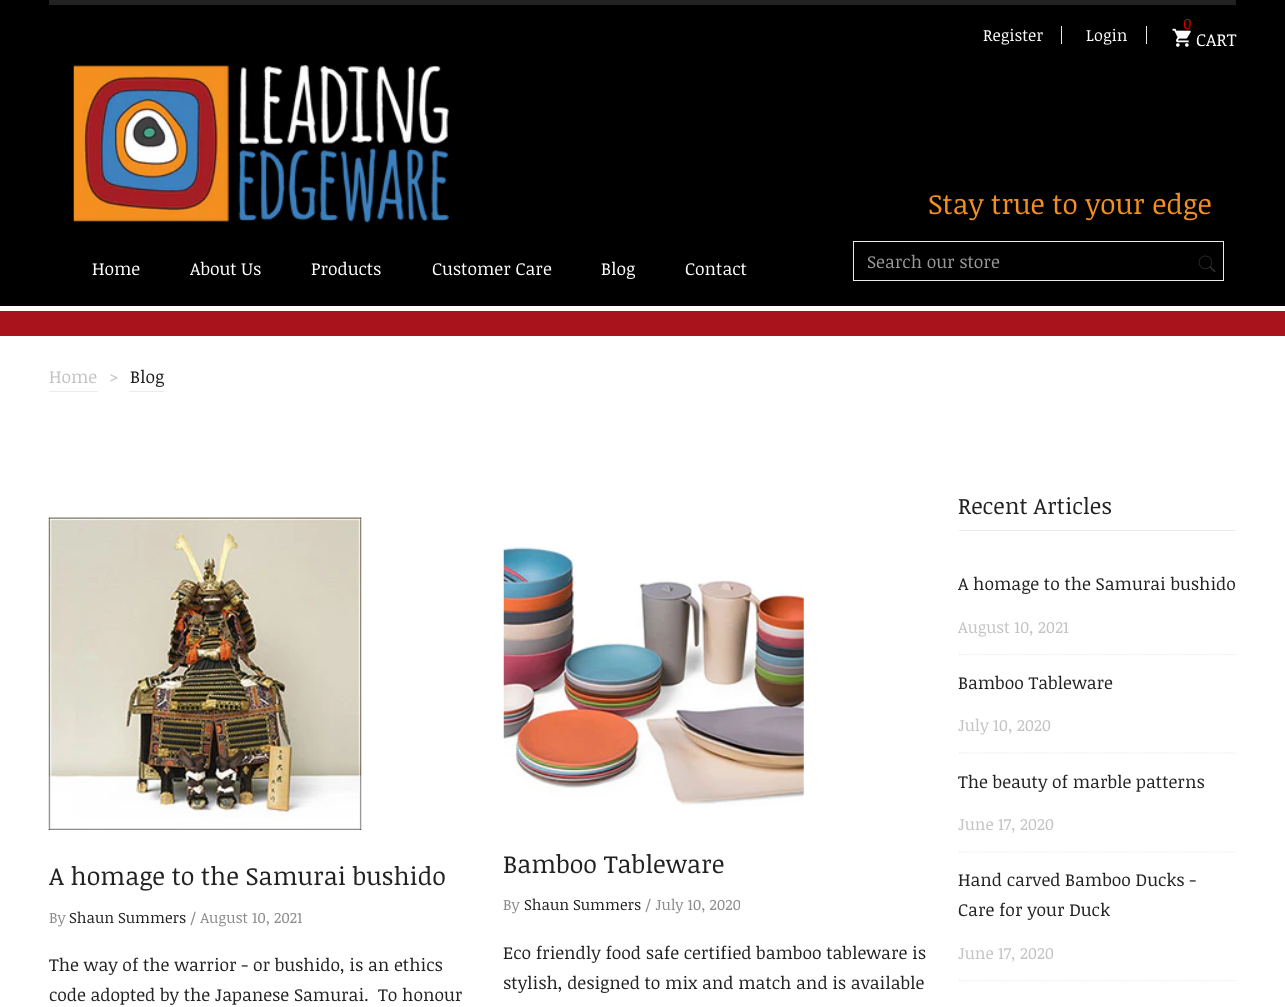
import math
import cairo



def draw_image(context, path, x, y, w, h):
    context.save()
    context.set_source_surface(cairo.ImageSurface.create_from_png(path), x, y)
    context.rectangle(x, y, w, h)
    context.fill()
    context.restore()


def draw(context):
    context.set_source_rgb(1, 1, 1)
    context.paint()
    context.set_source_rgb(0, 0, 0)
    context.rectangle(0, 0, 1285, 306)
    context.fill()
    context.set_source_rgb(34 / 255, 34 / 255, 34 / 255)
    context.rectangle(49, 0, 1187, 5)
    context.fill()
    context.set_source_rgb(235 / 255, 235 / 255, 235 / 255)
    context.rectangle(1061, 26, 1, 18)
    context.fill()
    context.rectangle(1146, 26, 1, 18)
    context.fill()
    draw_image(context, "images/1.png", 1172, 28, 19, 19)
    draw_image(context, "images/2.png", 73, 65, 376, 158)
    context.rectangle(853.5, 241.5, 370, 39)
    context.set_line_width(1)
    context.stroke()
    draw_image(context, "images/3.png", 1198, 255, 18, 18)
    context.set_source_rgb(168 / 255, 19 / 255, 28 / 255)
    context.rectangle(0, 311, 1285, 25)
    context.fill()
    context.set_source_rgb(235 / 255, 235 / 255, 235 / 255)
    context.rectangle(49, 391, 49, 1)
    context.fill()
    context.rectangle(129, 391, 35, 1)
    context.fill()
    draw_image(context, "images/4.png", 48, 517, 314, 313)
    draw_image(context, "images/5.png", 503, 546, 301, 260)
    context.rectangle(959, 530, 277, 1)
    context.fill()
    context.new_path()
    context.move_to(959, 654.5)
    context.line_to(1236, 654.5)
    context.set_line_width(1.2)
    context.set_dash([1.25, 1.25])
    context.stroke()
    context.new_path()
    context.move_to(959, 753)
    context.line_to(1236, 753)
    context.stroke()
    context.new_path()
    context.move_to(959, 852)
    context.line_to(1236, 852)
    context.stroke()
    context.new_path()
    context.move_to(959, 980.5)
    context.line_to(1236, 980.5)
    context.stroke()
    context.select_font_face("Noticia Text")
    context.set_font_size(16.25)
    context.set_source_rgb(1, 1, 1)
    context.move_to(983, 41)
    context.show_text("Register")
    context.move_to(1086, 41)
    context.show_text("Login")
    context.set_font_size(15)
    context.set_source_rgb(206 / 255, 0, 0)
    context.move_to(1183, 29)
    context.show_text("0")
    context.set_font_size(17.5)
    context.set_source_rgb(1, 1, 1)
    context.move_to(1196, 46)
    context.show_text("CART")
    context.set_font_size(28)
    context.set_source_rgb(243 / 255, 143 / 255, 32 / 255)
    context.move_to(928, 214)
    context.show_text("Stay true to your edge")
    context.set_font_size(17.5)
    context.set_source_rgb(1, 1, 1)
    context.move_to(92, 275)
    context.show_text("Home")
    context.move_to(190, 275)
    context.show_text("About Us")
    context.move_to(311, 275)
    context.show_text("Products")
    context.move_to(432, 275)
    context.show_text("Customer Care")
    context.move_to(601, 275)
    context.show_text("Blog")
    context.move_to(685, 275)
    context.show_text("Contact")
    context.set_source_rgb(153 / 255, 153 / 255, 153 / 255)
    context.move_to(867, 268)
    context.show_text("Search our store")
    context.set_source_rgb(195 / 255, 195 / 255, 195 / 255)
    context.move_to(49, 383)
    context.show_text("Home")
    context.move_to(109, 383)
    context.show_text(">")
    context.set_source_rgb(34 / 255, 34 / 255, 34 / 255)
    context.move_to(130, 383)
    context.show_text("Blog")
    context.set_font_size(25)
    context.move_to(49, 885)
    context.show_text("A homage to the Samurai bushido")
    context.set_font_size(15)
    context.set_source_rgb(140 / 255, 140 / 255, 140 / 255)
    context.move_to(49, 923)
    context.show_text("By")
    context.set_source_rgb(34 / 255, 34 / 255, 34 / 255)
    context.move_to(69, 923)
    context.show_text("Shaun Summers")
    context.set_source_rgb(140 / 255, 140 / 255, 140 / 255)
    context.move_to(190, 923)
    context.show_text("/ August 10, 2021")
    context.set_font_size(17.5)
    context.set_source_rgb(34 / 255, 34 / 255, 34 / 255)
    context.move_to(49, 971)
    context.show_text("The way of the warrior - or bushido, is an ethics")
    context.move_to(49, 1001)
    context.show_text("code adopted by the Japanese Samurai.  To honour")
    context.set_font_size(25)
    context.move_to(503, 873)
    context.show_text("Bamboo Tableware")
    context.set_font_size(15)
    context.set_source_rgb(140 / 255, 140 / 255, 140 / 255)
    context.move_to(503, 910)
    context.show_text("By")
    context.set_source_rgb(34 / 255, 34 / 255, 34 / 255)
    context.move_to(524, 910)
    context.show_text("Shaun Summers")
    context.set_source_rgb(140 / 255, 140 / 255, 140 / 255)
    context.move_to(645, 910)
    context.show_text("/ July 10, 2020")
    context.set_font_size(17.5)
    context.set_source_rgb(34 / 255, 34 / 255, 34 / 255)
    context.move_to(503, 959)
    context.show_text("Eco friendly food safe certified bamboo tableware is")
    context.move_to(503, 989)
    context.show_text("stylish, designed to mix and match and is available")
    context.set_font_size(22.5)
    context.move_to(958, 514)
    context.show_text("Recent Articles")
    context.set_font_size(17.5)
    context.move_to(958, 590)
    context.show_text("A homage to the Samurai bushido")
    context.set_font_size(16.25)
    context.set_source_rgb(195 / 255, 195 / 255, 195 / 255)
    context.move_to(958, 633)
    context.show_text("August 10, 2021")
    context.set_font_size(17.5)
    context.set_source_rgb(34 / 255, 34 / 255, 34 / 255)
    context.move_to(958, 689)
    context.show_text("Bamboo Tableware")
    context.set_font_size(16.25)
    context.set_source_rgb(195 / 255, 195 / 255, 195 / 255)
    context.move_to(958, 731)
    context.show_text("July 10, 2020")
    context.set_font_size(17.5)
    context.set_source_rgb(34 / 255, 34 / 255, 34 / 255)
    context.move_to(958, 788)
    context.show_text("The beauty of marble patterns")
    context.set_font_size(16.25)
    context.set_source_rgb(195 / 255, 195 / 255, 195 / 255)
    context.move_to(958, 830)
    context.show_text("June 17, 2020")
    context.set_font_size(17.5)
    context.set_source_rgb(34 / 255, 34 / 255, 34 / 255)
    context.move_to(958, 886)
    context.show_text("Hand carved Bamboo Ducks -")
    context.move_to(958, 916)
    context.show_text("Care for your Duck")
    context.set_font_size(16.25)
    context.set_source_rgb(195 / 255, 195 / 255, 195 / 255)
    context.move_to(958, 959)
    context.show_text("June 17, 2020")


surface = cairo.ImageSurface(cairo.Format.RGB24, 1285, 1007)
context = cairo.Context(surface)
options = cairo.FontOptions()
options.set_hint_metrics(cairo.HintMetrics.OFF)
options.set_hint_style(cairo.HintStyle.NONE)
context.set_font_options(options)
context.set_miter_limit(4)
draw(context)
surface.write_to_png("out.png")
